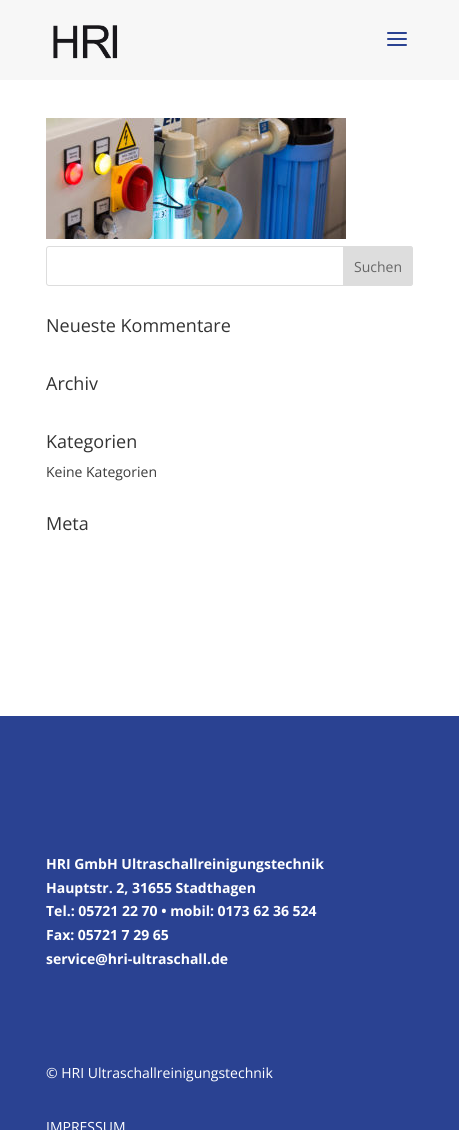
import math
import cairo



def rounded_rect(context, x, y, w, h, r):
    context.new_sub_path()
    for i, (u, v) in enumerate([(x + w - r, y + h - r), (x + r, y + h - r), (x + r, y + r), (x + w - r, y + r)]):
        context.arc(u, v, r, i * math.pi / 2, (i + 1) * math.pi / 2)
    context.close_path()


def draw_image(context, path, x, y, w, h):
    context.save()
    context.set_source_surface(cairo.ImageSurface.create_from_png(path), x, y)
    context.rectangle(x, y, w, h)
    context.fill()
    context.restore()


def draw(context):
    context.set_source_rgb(1, 1, 1)
    context.paint()
    context.set_source_rgb(247 / 255, 247 / 255, 247 / 255)
    context.rectangle(0, 0, 459, 80)
    context.fill()
    draw_image(context, "images/1.png", 53, 25, 65, 34)
    draw_image(context, "images/2.png", 387, 32, 20, 14)
    draw_image(context, "images/3.png", 46, 118, 300, 121)
    rounded_rect(context, 46.5, 246.5, 366, 39, 2.5)
    context.set_source_rgb(221 / 255, 221 / 255, 221 / 255)
    context.set_line_width(1)
    context.stroke()
    context.new_path()
    context.move_to(343.5, 246.5)
    context.line_to(410, 246.5)
    context.curve_to(411.5, 246.5, 412.5, 247.5, 412.5, 249)
    context.line_to(412.5, 283)
    context.curve_to(412.5, 284.5, 411.5, 285.5, 410, 285.5)
    context.line_to(343.5, 285.5)
    context.close_path()
    context.fill_preserve()
    context.stroke()
    context.set_source_rgb(42 / 255, 66 / 255, 146 / 255)
    context.rectangle(0, 716, 459, 414)
    context.fill()
    context.select_font_face("Open Sans")
    context.set_font_size(14)
    context.set_source_rgb(102 / 255, 102 / 255, 102 / 255)
    context.move_to(354, 272)
    context.show_text("Suchen")
    context.set_font_size(18)
    context.set_source_rgb(51 / 255, 51 / 255, 51 / 255)
    context.move_to(46, 332)
    context.show_text("Neueste Kommentare")
    context.move_to(46, 390)
    context.show_text("Archiv")
    context.move_to(46, 448)
    context.show_text("Kategorien")
    context.set_font_size(14)
    context.set_source_rgb(58 / 255, 58 / 255, 58 / 255)
    context.move_to(46, 477)
    context.show_text("Keine Kategorien")
    context.set_font_size(18)
    context.set_source_rgb(51 / 255, 51 / 255, 51 / 255)
    context.move_to(46, 530)
    context.show_text("Meta")
    context.select_font_face("Open Sans", cairo.FontSlant.NORMAL, cairo.FontWeight.BOLD)
    context.set_font_size(14)
    context.set_source_rgb(1, 1, 1)
    context.move_to(46, 869)
    context.show_text("HRI GmbH Ultraschallreinigungstechnik")
    context.move_to(46, 893)
    context.show_text("Hauptstr. 2, 31655 Stadthagen")
    context.move_to(46, 916)
    context.show_text("Tel.: 05721 22 70 • mobil: 0173 62 36 524")
    context.move_to(46, 940)
    context.show_text("Fax: 05721 7 29 65")
    context.move_to(46, 964)
    context.show_text("service@hri-ultraschall.de")
    context.select_font_face("Open Sans")
    context.move_to(46, 1078)
    context.show_text("© HRI Ultraschallreinigungstechnik")
    context.move_to(46, 1132)
    context.show_text("IMPRESSUM")


surface = cairo.ImageSurface(cairo.Format.RGB24, 459, 1130)
context = cairo.Context(surface)
options = cairo.FontOptions()
options.set_hint_metrics(cairo.HintMetrics.OFF)
options.set_hint_style(cairo.HintStyle.NONE)
context.set_font_options(options)
context.set_miter_limit(4)
draw(context)
surface.write_to_png("out.png")
